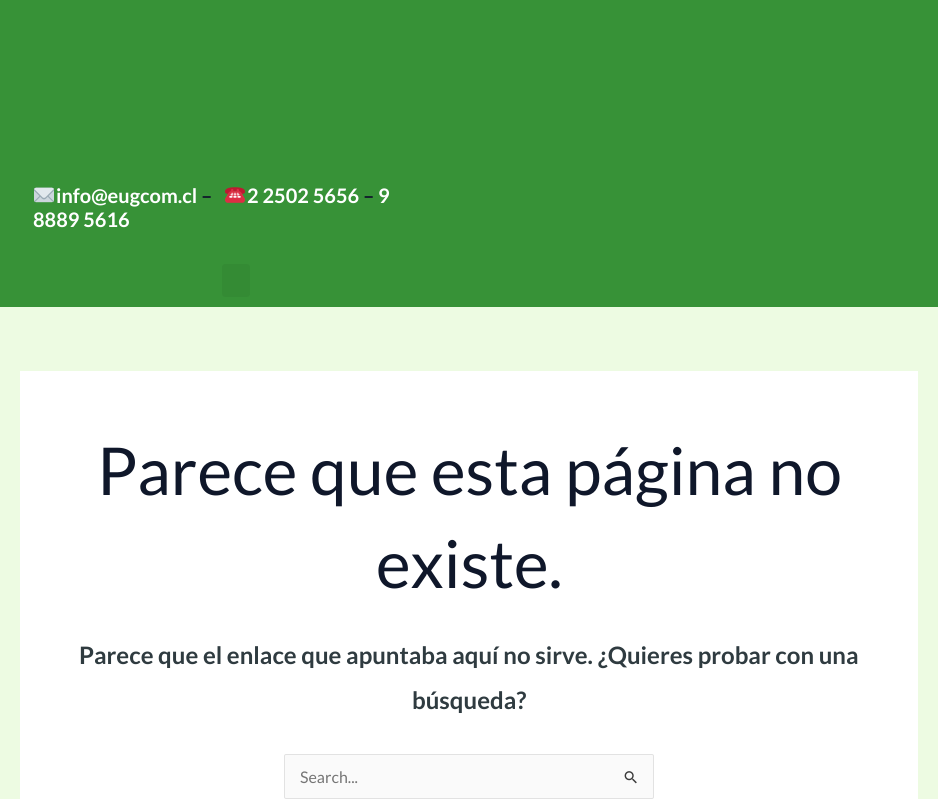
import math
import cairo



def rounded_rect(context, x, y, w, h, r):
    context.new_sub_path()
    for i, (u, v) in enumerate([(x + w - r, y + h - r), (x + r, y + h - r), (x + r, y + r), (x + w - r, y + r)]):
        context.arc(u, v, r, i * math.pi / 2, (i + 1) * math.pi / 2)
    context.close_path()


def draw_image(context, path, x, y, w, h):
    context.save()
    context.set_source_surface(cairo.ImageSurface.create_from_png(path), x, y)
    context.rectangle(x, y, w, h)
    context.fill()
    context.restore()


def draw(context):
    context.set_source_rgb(237 / 255, 251 / 255, 226 / 255)
    context.paint()
    context.set_source_rgb(55 / 255, 146 / 255, 55 / 255)
    context.rectangle(0, 0, 938, 307)
    context.fill()
    draw_image(context, "images/1.png", 34, 187, 20, 16)
    draw_image(context, "images/2.png", 225, 187, 20, 16)
    context.set_source_rgb(52 / 255, 139 / 255, 52 / 255)
    rounded_rect(context, 222, 264, 28, 33, 3)
    context.fill()
    context.set_source_rgb(1, 1, 1)
    context.rectangle(20, 371, 898, 428)
    context.fill()
    context.set_source_rgb(250 / 255, 250 / 255, 250 / 255)
    rounded_rect(context, 284.5, 754.5, 369, 44, 1.5)
    context.fill_preserve()
    context.set_source_rgb(226 / 255, 226 / 255, 226 / 255)
    context.set_line_width(1)
    context.stroke()
    draw_image(context, "images/3.png", 624, 771, 13, 13)
    context.select_font_face("Lato", cairo.FontSlant.NORMAL, cairo.FontWeight.BOLD)
    context.set_font_size(20)
    context.set_source_rgb(1, 1, 1)
    context.move_to(56, 203)
    context.show_text("info@eugcom.cl")
    context.set_source_rgb(15 / 255, 23 / 255, 42 / 255)
    context.move_to(201, 203)
    context.show_text("–")
    context.set_source_rgb(1, 1, 1)
    context.move_to(247, 203)
    context.show_text("2 2502 5656")
    context.set_source_rgb(15 / 255, 23 / 255, 42 / 255)
    context.move_to(363, 203)
    context.show_text("–")
    context.set_source_rgb(1, 1, 1)
    context.move_to(378, 203)
    context.show_text("9")
    context.move_to(33, 227)
    context.show_text("8889 5616")
    context.select_font_face("Lato")
    context.set_font_size(66)
    context.set_source_rgb(15 / 255, 23 / 255, 42 / 255)
    context.move_to(97, 495)
    context.show_text("Parece que esta página no")
    context.move_to(376, 588)
    context.show_text("existe.")
    context.select_font_face("Lato", cairo.FontSlant.NORMAL, cairo.FontWeight.BOLD)
    context.set_font_size(24)
    context.set_source_rgb(47 / 255, 59 / 255, 64 / 255)
    context.move_to(79, 664)
    context.show_text("Parece que el enlace que apuntaba aquí no sirve. ¿Quieres probar con una")
    context.move_to(412, 709)
    context.show_text("búsqueda?")
    context.select_font_face("Lato")
    context.set_font_size(16)
    context.set_source_rgb(117 / 255, 117 / 255, 117 / 255)
    context.move_to(300, 783)
    context.show_text("Search...")


surface = cairo.ImageSurface(cairo.Format.RGB24, 938, 799)
context = cairo.Context(surface)
options = cairo.FontOptions()
options.set_hint_metrics(cairo.HintMetrics.OFF)
options.set_hint_style(cairo.HintStyle.NONE)
context.set_font_options(options)
context.set_miter_limit(4)
draw(context)
surface.write_to_png("out.png")
